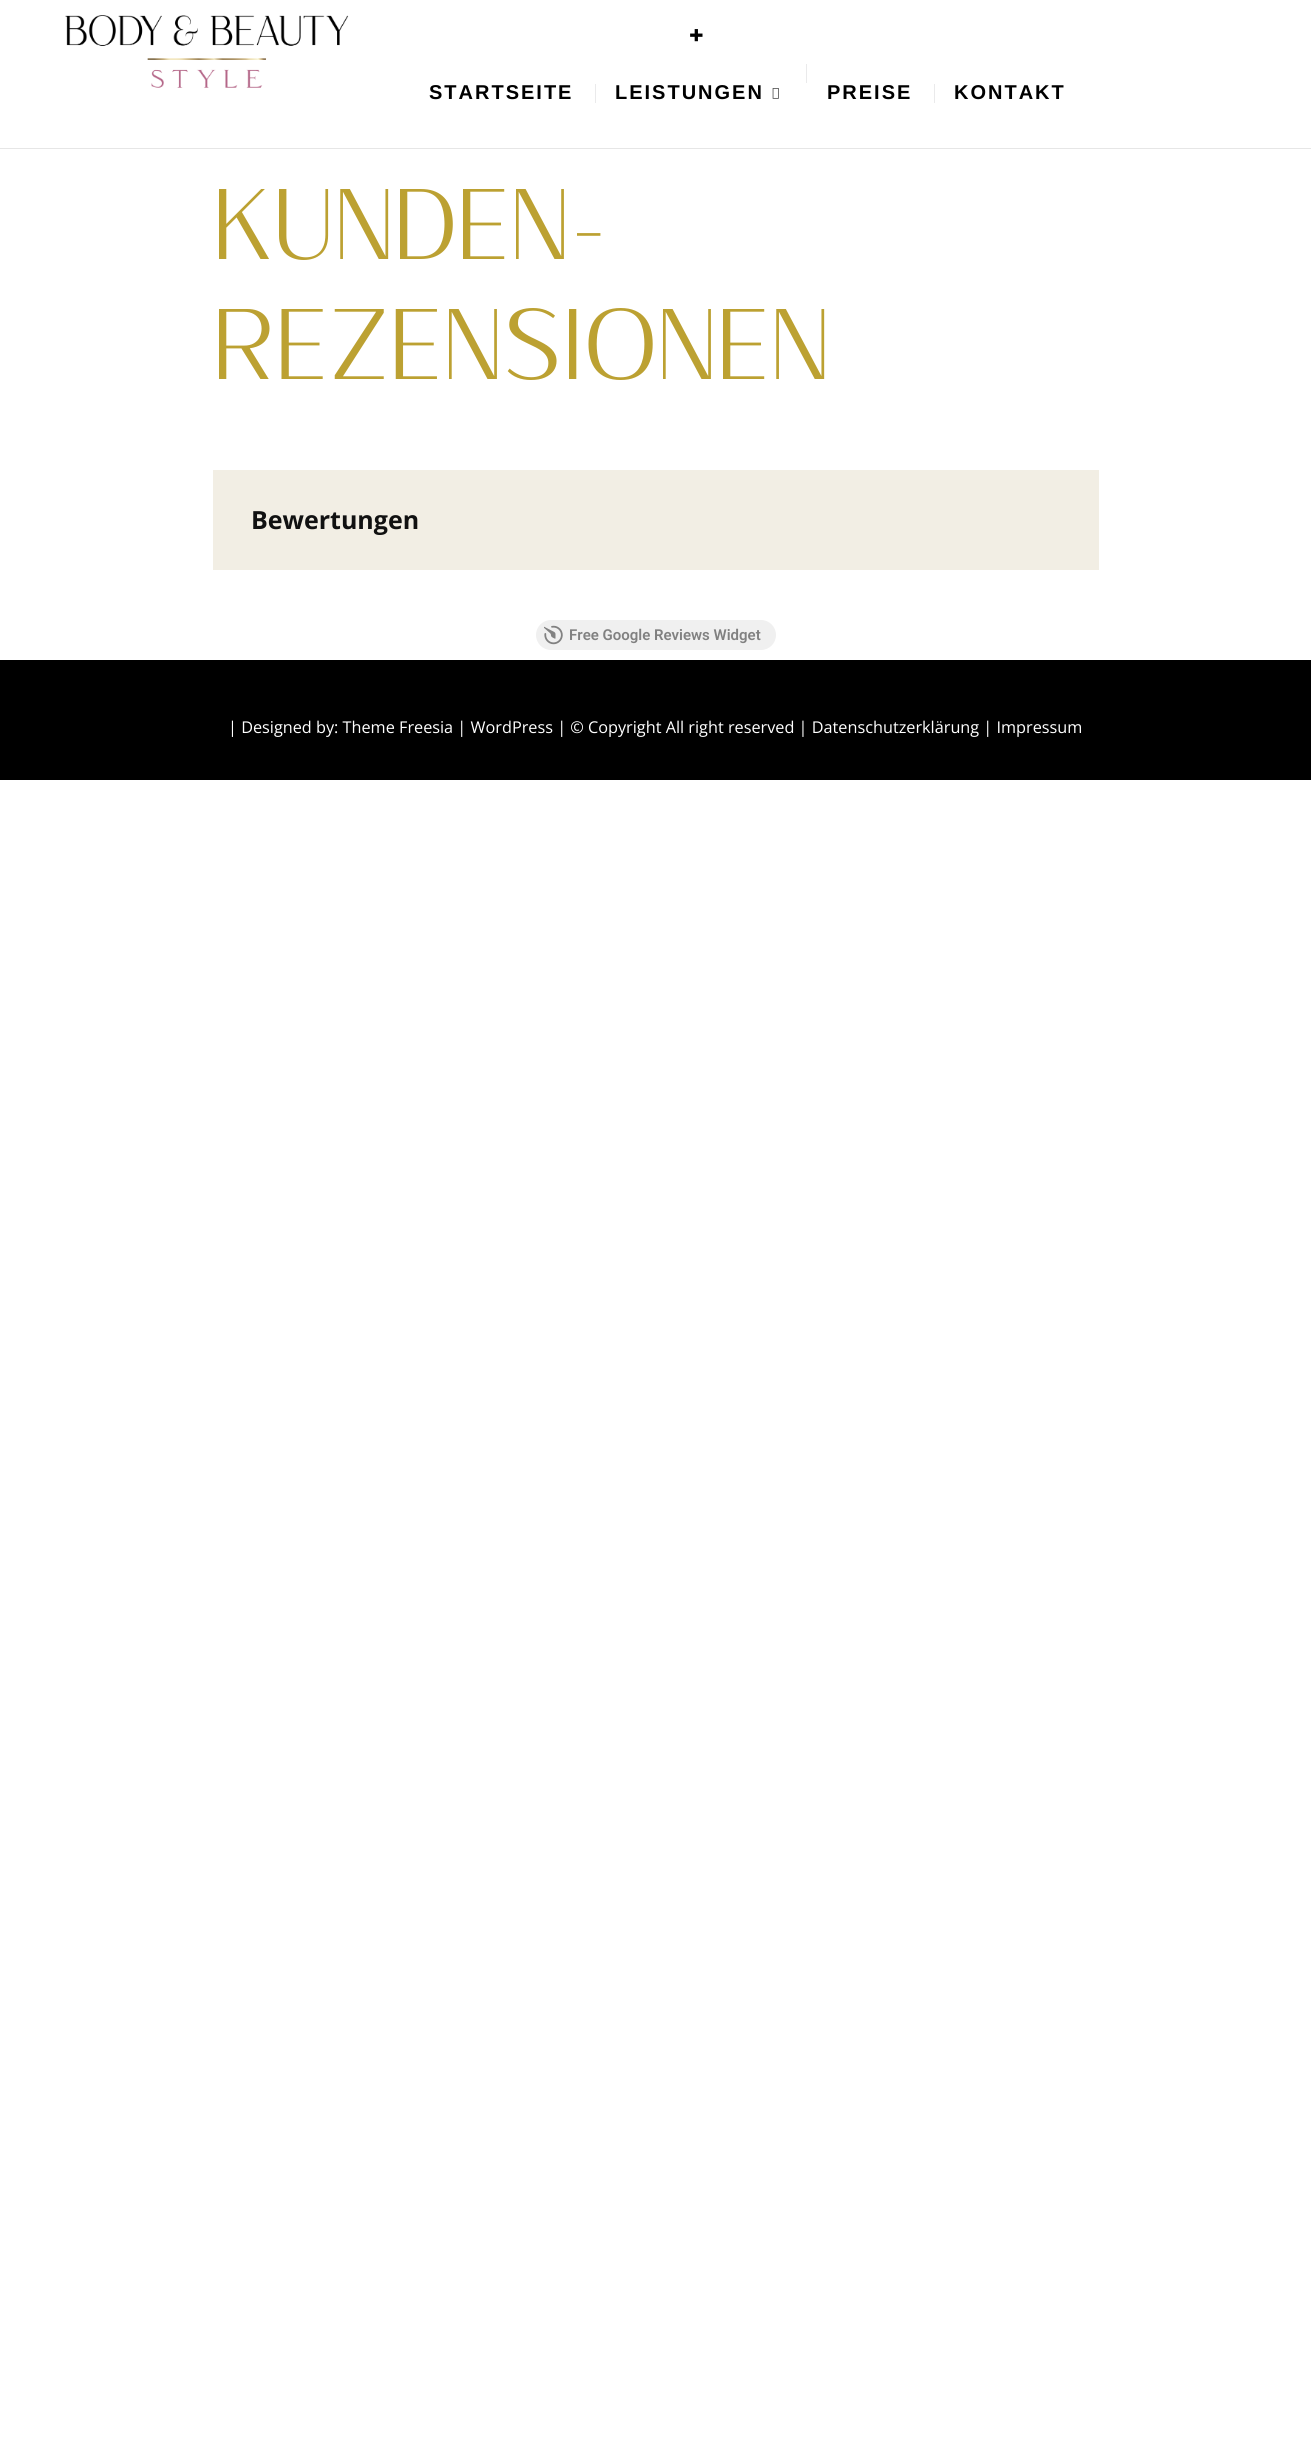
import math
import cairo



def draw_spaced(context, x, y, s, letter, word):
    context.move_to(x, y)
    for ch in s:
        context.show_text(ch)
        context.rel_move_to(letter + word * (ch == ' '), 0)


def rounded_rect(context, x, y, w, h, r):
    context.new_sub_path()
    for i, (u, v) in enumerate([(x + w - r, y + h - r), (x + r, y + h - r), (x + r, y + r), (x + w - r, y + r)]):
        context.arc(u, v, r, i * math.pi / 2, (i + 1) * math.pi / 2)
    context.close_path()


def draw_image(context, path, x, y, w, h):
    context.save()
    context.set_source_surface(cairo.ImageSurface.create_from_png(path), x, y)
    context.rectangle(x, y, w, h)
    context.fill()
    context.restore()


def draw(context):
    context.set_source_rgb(1, 1, 1)
    context.paint()
    context.set_source_rgb(230 / 255, 230 / 255, 230 / 255)
    context.rectangle(0, 148, 1311, 1)
    context.fill()
    draw_image(context, "images/1.png", 65, 15, 284, 73)
    context.set_source_rgb(234 / 255, 234 / 255, 235 / 255)
    context.rectangle(595, 84, 1, 19)
    context.fill()
    context.rectangle(806, 64, 1, 19)
    context.fill()
    draw_image(context, "images/2.png", 772, 88, 7, 11)
    context.rectangle(934, 84, 1, 19)
    context.fill()
    context.set_source_rgb(242 / 255, 238 / 255, 228 / 255)
    context.rectangle(213, 470, 886, 100)
    context.fill()
    context.set_source_rgb(240 / 255, 240 / 255, 240 / 255)
    rounded_rect(context, 536, 620, 240, 30, 15)
    context.fill()
    draw_image(context, "images/3.png", 544, 625, 19, 20)
    context.set_source_rgb(0, 0, 0)
    context.rectangle(0, 660, 1311, 120)
    context.fill()
    context.select_font_face("Liberation Sans", cairo.FontSlant.NORMAL, cairo.FontWeight.BOLD)
    context.set_font_size(20)
    draw_spaced(context, 429, 99, "STARTSEITE", 2, 0)
    context.select_font_face("Noto Sans Black")
    context.set_font_size(25)
    context.move_to(689, 44)
    context.show_text("+")
    context.select_font_face("Liberation Sans", cairo.FontSlant.NORMAL, cairo.FontWeight.BOLD)
    context.set_font_size(20)
    draw_spaced(context, 615, 99, "LEISTUNGEN", 2, 0)
    draw_spaced(context, 827, 99, "PREISE", 2, 0)
    draw_spaced(context, 954, 99, "KONTAKT", 2, 0)
    context.select_font_face("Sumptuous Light")
    context.set_font_size(100)
    context.set_source_rgb(188 / 255, 161 / 255, 50 / 255)
    context.move_to(213, 259)
    context.show_text("KUNDEN-")
    context.move_to(213, 379)
    context.show_text("REZENSIONEN")
    context.select_font_face("Open Sans", cairo.FontSlant.NORMAL, cairo.FontWeight.BOLD)
    context.set_font_size(25)
    context.set_source_rgb(17 / 255, 17 / 255, 17 / 255)
    context.move_to(251, 529)
    context.show_text("Bewertungen")
    context.select_font_face("Roboto SemiBold")
    context.set_font_size(15)
    context.set_source_rgb(129 / 255, 129 / 255, 129 / 255)
    context.move_to(569, 640)
    context.show_text("Free Google Reviews Widget")
    context.select_font_face("Open Sans")
    context.set_font_size(16.25)
    context.set_source_rgb(1, 1, 1)
    context.move_to(228, 733)
    context.show_text("| Designed by: Theme Freesia | WordPress | © Copyright All right reserved | Datenschutzerklärung | Impressum")


surface = cairo.ImageSurface(cairo.Format.RGB24, 1311, 2443)
context = cairo.Context(surface)
options = cairo.FontOptions()
options.set_hint_metrics(cairo.HintMetrics.OFF)
options.set_hint_style(cairo.HintStyle.NONE)
context.set_font_options(options)
context.set_miter_limit(4)
draw(context)
surface.write_to_png("out.png")
